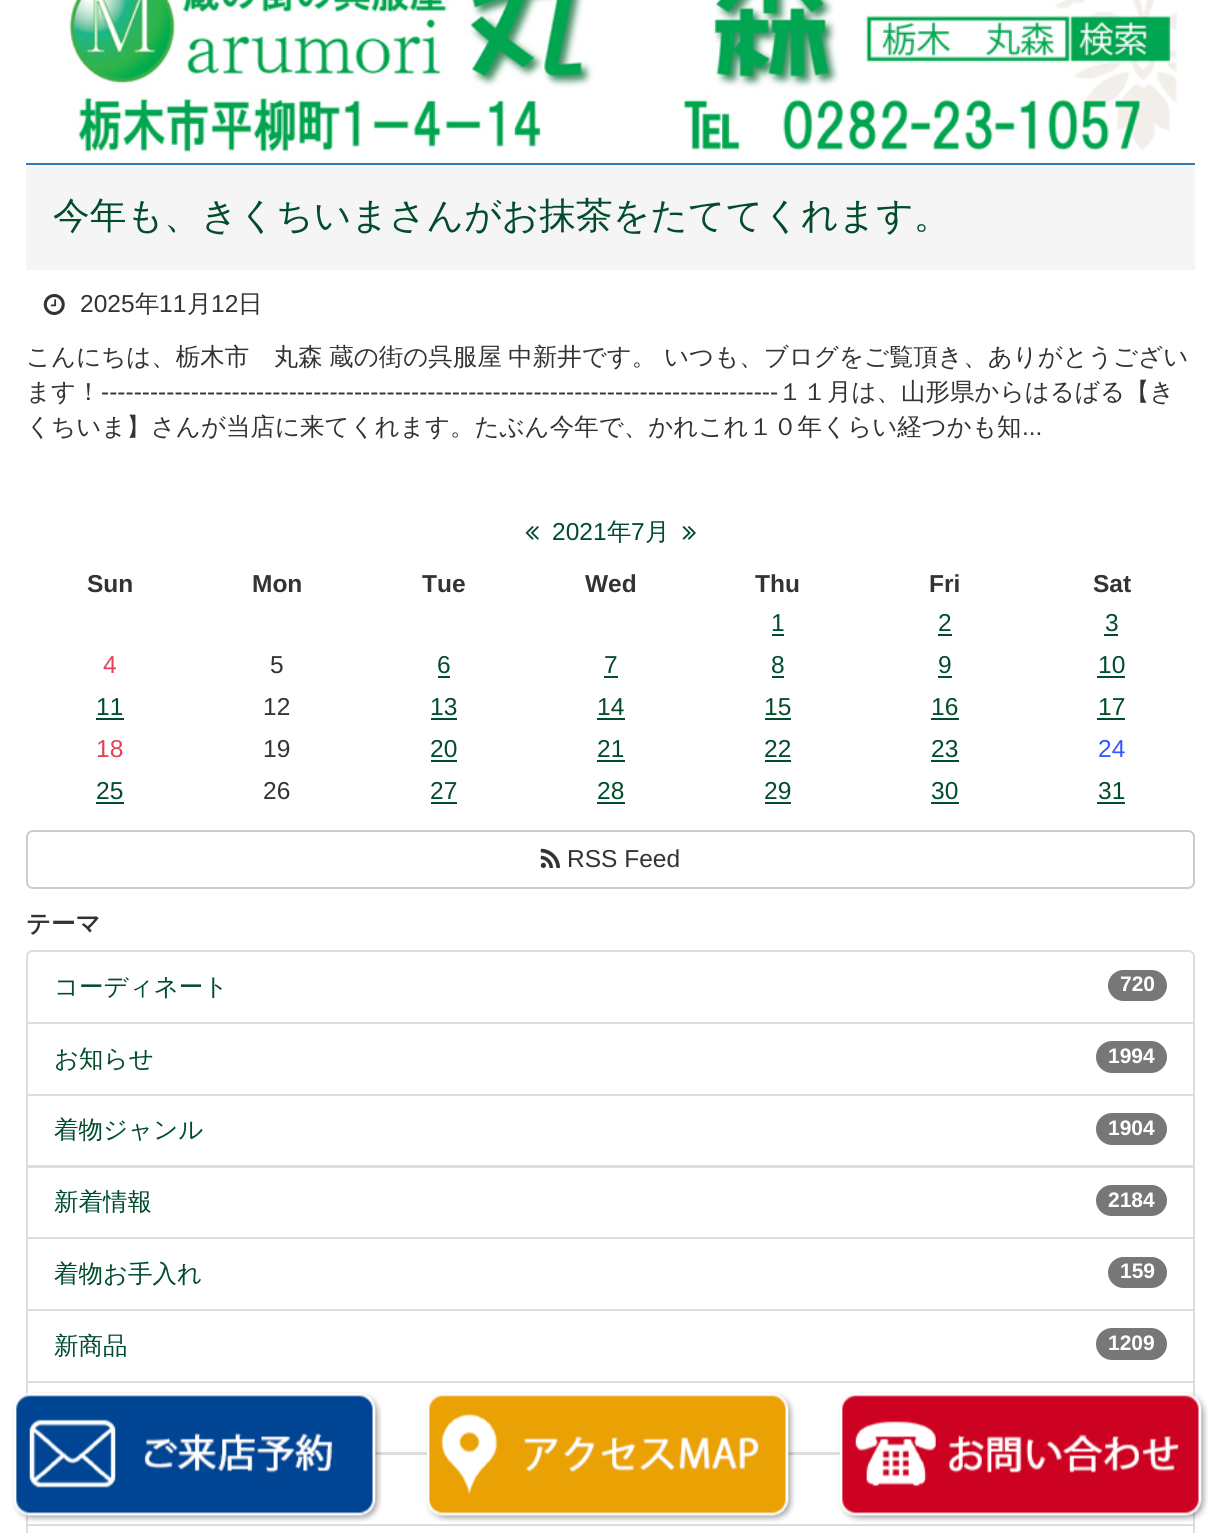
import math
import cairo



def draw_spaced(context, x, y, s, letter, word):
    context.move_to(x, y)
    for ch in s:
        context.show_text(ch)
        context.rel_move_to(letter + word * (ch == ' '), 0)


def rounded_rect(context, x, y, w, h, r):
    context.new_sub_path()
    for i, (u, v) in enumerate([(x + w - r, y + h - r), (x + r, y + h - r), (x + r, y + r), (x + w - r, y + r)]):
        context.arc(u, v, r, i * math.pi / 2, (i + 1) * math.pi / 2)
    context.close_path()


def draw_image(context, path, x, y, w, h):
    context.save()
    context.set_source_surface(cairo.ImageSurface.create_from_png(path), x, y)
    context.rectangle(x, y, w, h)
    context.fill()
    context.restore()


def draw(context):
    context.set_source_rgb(1, 1, 1)
    context.paint()
    draw_image(context, "images/1.png", 69, 0, 1109, 152)
    context.set_source_rgb(245 / 255, 245 / 255, 245 / 255)
    context.rectangle(26, 165, 1169, 105)
    context.fill()
    context.set_source_rgb(51 / 255, 122 / 255, 183 / 255)
    context.rectangle(26, 163, 1169, 2)
    context.fill()
    draw_image(context, "images/2.png", 43, 294, 22, 21)
    draw_image(context, "images/3.png", 525, 526, 14, 14)
    draw_image(context, "images/4.png", 682, 526, 14, 14)
    context.set_source_rgb(1 / 255, 76 / 255, 45 / 255)
    context.rectangle(772, 634, 12, 2)
    context.fill()
    context.rectangle(938, 634, 14, 2)
    context.fill()
    context.rectangle(1104, 634, 14, 2)
    context.fill()
    context.rectangle(438, 676, 12, 2)
    context.fill()
    context.rectangle(604, 676, 14, 2)
    context.fill()
    context.rectangle(772, 676, 12, 2)
    context.fill()
    context.rectangle(938, 676, 14, 2)
    context.fill()
    context.rectangle(1097, 676, 28, 2)
    context.fill()
    context.rectangle(96, 718, 28, 2)
    context.fill()
    context.rectangle(431, 718, 26, 2)
    context.fill()
    context.rectangle(597, 718, 28, 2)
    context.fill()
    context.rectangle(765, 718, 26, 2)
    context.fill()
    context.rectangle(931, 718, 28, 2)
    context.fill()
    context.rectangle(1097, 718, 28, 2)
    context.fill()
    context.rectangle(431, 760, 26, 2)
    context.fill()
    context.rectangle(597, 760, 28, 2)
    context.fill()
    context.rectangle(765, 760, 26, 2)
    context.fill()
    context.rectangle(931, 760, 28, 2)
    context.fill()
    context.rectangle(96, 802, 28, 2)
    context.fill()
    context.rectangle(431, 802, 26, 2)
    context.fill()
    context.rectangle(597, 802, 28, 2)
    context.fill()
    context.rectangle(765, 802, 26, 2)
    context.fill()
    context.rectangle(931, 802, 28, 2)
    context.fill()
    context.rectangle(1097, 802, 28, 2)
    context.fill()
    rounded_rect(context, 27, 831, 1167, 57, 6)
    context.set_source_rgb(204 / 255, 204 / 255, 204 / 255)
    context.stroke()
    draw_image(context, "images/5.png", 540, 848, 20, 20)
    context.new_path()
    context.move_to(33, 951)
    context.line_to(1188, 951)
    context.curve_to(1191.5, 951, 1194, 953.5, 1194, 957)
    context.line_to(1194, 1023)
    context.line_to(27, 1023)
    context.line_to(27, 957)
    context.curve_to(27, 953.5, 29.5, 951, 33, 951)
    context.close_path()
    context.set_source_rgb(221 / 255, 221 / 255, 221 / 255)
    context.stroke()
    context.set_source_rgb(119 / 255, 119 / 255, 119 / 255)
    rounded_rect(context, 1108, 970, 59, 31, 15.5)
    context.fill()
    context.rectangle(27, 1023, 1167, 72)
    context.set_source_rgb(221 / 255, 221 / 255, 221 / 255)
    context.stroke()
    context.set_source_rgb(119 / 255, 119 / 255, 119 / 255)
    rounded_rect(context, 1096, 1041, 71, 32, 16)
    context.fill()
    context.rectangle(27, 1095, 1167, 71)
    context.set_source_rgb(221 / 255, 221 / 255, 221 / 255)
    context.stroke()
    context.set_source_rgb(119 / 255, 119 / 255, 119 / 255)
    rounded_rect(context, 1096, 1113, 71, 32, 16)
    context.fill()
    context.rectangle(27, 1167, 1167, 71)
    context.set_source_rgb(221 / 255, 221 / 255, 221 / 255)
    context.stroke()
    context.set_source_rgb(119 / 255, 119 / 255, 119 / 255)
    rounded_rect(context, 1096, 1185, 71, 31, 15.5)
    context.fill()
    context.rectangle(27, 1238, 1167, 72)
    context.set_source_rgb(221 / 255, 221 / 255, 221 / 255)
    context.stroke()
    context.set_source_rgb(119 / 255, 119 / 255, 119 / 255)
    rounded_rect(context, 1108, 1257, 59, 31, 15.5)
    context.fill()
    context.rectangle(27, 1310, 1167, 72)
    context.set_source_rgb(221 / 255, 221 / 255, 221 / 255)
    context.stroke()
    context.set_source_rgb(119 / 255, 119 / 255, 119 / 255)
    rounded_rect(context, 1096, 1328, 71, 32, 16)
    context.fill()
    context.rectangle(27, 1382, 1167, 71)
    context.set_source_rgb(221 / 255, 221 / 255, 221 / 255)
    context.stroke()
    context.rectangle(27, 1454, 1167, 71)
    context.stroke()
    context.rectangle(27, 1525, 1167, 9)
    context.stroke()
    draw_image(context, "images/6.png", 12, 1392, 370, 130)
    draw_image(context, "images/7.png", 425, 1392, 370, 130)
    draw_image(context, "images/8.png", 838, 1392, 370, 130)
    context.select_font_face("WenQuanYi Zen Hei Medium")
    context.set_font_size(36.75)
    context.set_source_rgb(1 / 255, 76 / 255, 45 / 255)
    context.move_to(53, 228)
    context.show_text("今年も、きくちいまさんがお抹茶をたててくれます。")
    context.select_font_face("Liberation Sans")
    context.set_font_size(24.5)
    context.set_source_rgb(51 / 255, 51 / 255, 51 / 255)
    context.move_to(80, 312)
    context.show_text("2025")
    context.select_font_face("WenQuanYi Zen Hei Medium")
    context.move_to(135, 312)
    context.show_text("年")
    context.select_font_face("Liberation Sans")
    context.move_to(159, 312)
    context.show_text("11")
    context.select_font_face("WenQuanYi Zen Hei Medium")
    context.move_to(187, 312)
    context.show_text("月")
    context.select_font_face("Liberation Sans")
    context.move_to(211, 312)
    context.show_text("12")
    context.select_font_face("WenQuanYi Zen Hei Medium")
    context.move_to(238, 312)
    context.show_text("日")
    draw_spaced(context, 26, 365, "こんにちは、栃木市　丸森 蔵の街の呉服屋 中新井です。", 0, -1)
    context.move_to(664, 365)
    context.show_text("いつも、ブログをご覧頂き、ありがとうござい")
    context.move_to(26, 400)
    context.show_text("ます！")
    context.select_font_face("Liberation Sans")
    context.move_to(101, 400)
    context.show_text("-----------------------------------------------------------------------------------")
    context.select_font_face("WenQuanYi Zen Hei Medium")
    context.move_to(778, 400)
    context.show_text("１１月は、山形県からはるばる【き")
    context.move_to(26, 435)
    context.show_text("くちいま】さんが当店に来てくれます。たぶん今年で、かれこれ１０年くらい経つかも知")
    context.select_font_face("Liberation Sans")
    context.move_to(1022, 435)
    context.show_text("...")
    context.set_source_rgb(1 / 255, 76 / 255, 45 / 255)
    context.move_to(552, 540)
    context.show_text("2021")
    context.select_font_face("WenQuanYi Zen Hei Medium")
    context.move_to(607, 540)
    context.show_text("年")
    context.select_font_face("Liberation Sans")
    context.move_to(631, 540)
    context.show_text("7")
    context.select_font_face("WenQuanYi Zen Hei Medium")
    context.move_to(645, 540)
    context.show_text("月")
    context.select_font_face("Liberation Sans", cairo.FontSlant.NORMAL, cairo.FontWeight.BOLD)
    context.set_source_rgb(51 / 255, 51 / 255, 51 / 255)
    context.move_to(87, 592)
    context.show_text("Sun")
    context.move_to(252, 592)
    context.show_text("Mon")
    context.move_to(422, 592)
    context.show_text("Tue")
    context.move_to(585, 592)
    context.show_text("Wed")
    context.move_to(755, 592)
    context.show_text("Thu")
    context.move_to(929, 592)
    context.show_text("Fri")
    context.move_to(1093, 592)
    context.show_text("Sat")
    context.select_font_face("Liberation Sans")
    context.set_source_rgb(1 / 255, 76 / 255, 45 / 255)
    context.move_to(771, 631)
    context.show_text("1")
    context.move_to(938, 631)
    context.show_text("2")
    context.move_to(1105, 631)
    context.show_text("3")
    context.set_source_rgb(229 / 255, 65 / 255, 85 / 255)
    context.move_to(103, 673)
    context.show_text("4")
    context.set_source_rgb(51 / 255, 51 / 255, 51 / 255)
    context.move_to(270, 673)
    context.show_text("5")
    context.set_source_rgb(1 / 255, 76 / 255, 45 / 255)
    context.move_to(437, 673)
    context.show_text("6")
    context.move_to(604, 673)
    context.show_text("7")
    context.move_to(771, 673)
    context.show_text("8")
    context.move_to(938, 673)
    context.show_text("9")
    context.move_to(1098, 673)
    context.show_text("10")
    context.move_to(96, 715)
    context.show_text("11")
    context.set_source_rgb(51 / 255, 51 / 255, 51 / 255)
    context.move_to(263, 715)
    context.show_text("12")
    context.set_source_rgb(1 / 255, 76 / 255, 45 / 255)
    context.move_to(430, 715)
    context.show_text("13")
    context.move_to(597, 715)
    context.show_text("14")
    context.move_to(764, 715)
    context.show_text("15")
    context.move_to(931, 715)
    context.show_text("16")
    context.move_to(1098, 715)
    context.show_text("17")
    context.set_source_rgb(229 / 255, 65 / 255, 85 / 255)
    context.move_to(96, 757)
    context.show_text("18")
    context.set_source_rgb(51 / 255, 51 / 255, 51 / 255)
    context.move_to(263, 757)
    context.show_text("19")
    context.set_source_rgb(1 / 255, 76 / 255, 45 / 255)
    context.move_to(430, 757)
    context.show_text("20")
    context.move_to(597, 757)
    context.show_text("21")
    context.move_to(764, 757)
    context.show_text("22")
    context.move_to(931, 757)
    context.show_text("23")
    context.set_source_rgb(51 / 255, 87 / 255, 1)
    context.move_to(1098, 757)
    context.show_text("24")
    context.set_source_rgb(1 / 255, 76 / 255, 45 / 255)
    context.move_to(96, 799)
    context.show_text("25")
    context.set_source_rgb(51 / 255, 51 / 255, 51 / 255)
    context.move_to(263, 799)
    context.show_text("26")
    context.set_source_rgb(1 / 255, 76 / 255, 45 / 255)
    context.move_to(430, 799)
    context.show_text("27")
    context.move_to(597, 799)
    context.show_text("28")
    context.move_to(764, 799)
    context.show_text("29")
    context.move_to(931, 799)
    context.show_text("30")
    context.move_to(1098, 799)
    context.show_text("31")
    context.set_source_rgb(51 / 255, 51 / 255, 51 / 255)
    context.move_to(567, 867)
    context.show_text("RSS Feed")
    context.select_font_face("WenQuanYi Zen Hei", cairo.FontSlant.NORMAL, cairo.FontWeight.BOLD)
    context.move_to(26, 932)
    context.show_text("テーマ")
    context.select_font_face("WenQuanYi Zen Hei Medium")
    context.set_source_rgb(1 / 255, 76 / 255, 45 / 255)
    context.move_to(54, 995)
    context.show_text("コーディネート")
    context.select_font_face("Liberation Sans", cairo.FontSlant.NORMAL, cairo.FontWeight.BOLD)
    context.set_font_size(21)
    context.set_source_rgb(1, 1, 1)
    context.move_to(1120, 991)
    context.show_text("720")
    context.select_font_face("WenQuanYi Zen Hei Medium")
    context.set_font_size(24.5)
    context.set_source_rgb(1 / 255, 76 / 255, 45 / 255)
    context.move_to(54, 1067)
    context.show_text("お知らせ")
    context.select_font_face("Liberation Sans", cairo.FontSlant.NORMAL, cairo.FontWeight.BOLD)
    context.set_font_size(21)
    context.set_source_rgb(1, 1, 1)
    context.move_to(1108, 1063)
    context.show_text("1994")
    context.select_font_face("WenQuanYi Zen Hei Medium")
    context.set_font_size(24.5)
    context.set_source_rgb(1 / 255, 76 / 255, 45 / 255)
    context.move_to(54, 1138)
    context.show_text("着物ジャンル")
    context.select_font_face("Liberation Sans", cairo.FontSlant.NORMAL, cairo.FontWeight.BOLD)
    context.set_font_size(21)
    context.set_source_rgb(1, 1, 1)
    context.move_to(1108, 1135)
    context.show_text("1904")
    context.select_font_face("WenQuanYi Zen Hei Medium")
    context.set_font_size(24.5)
    context.set_source_rgb(1 / 255, 76 / 255, 45 / 255)
    context.move_to(54, 1210)
    context.show_text("新着情報")
    context.select_font_face("Liberation Sans", cairo.FontSlant.NORMAL, cairo.FontWeight.BOLD)
    context.set_font_size(21)
    context.set_source_rgb(1, 1, 1)
    context.move_to(1108, 1207)
    context.show_text("2184")
    context.select_font_face("WenQuanYi Zen Hei Medium")
    context.set_font_size(24.5)
    context.set_source_rgb(1 / 255, 76 / 255, 45 / 255)
    context.move_to(54, 1282)
    context.show_text("着物お手入れ")
    context.select_font_face("Liberation Sans", cairo.FontSlant.NORMAL, cairo.FontWeight.BOLD)
    context.set_font_size(21)
    context.set_source_rgb(1, 1, 1)
    context.move_to(1120, 1278)
    context.show_text("159")
    context.select_font_face("WenQuanYi Zen Hei Medium")
    context.set_font_size(24.5)
    context.set_source_rgb(1 / 255, 76 / 255, 45 / 255)
    context.move_to(54, 1354)
    context.show_text("新商品")
    context.select_font_face("Liberation Sans", cairo.FontSlant.NORMAL, cairo.FontWeight.BOLD)
    context.set_font_size(21)
    context.set_source_rgb(1, 1, 1)
    context.move_to(1108, 1350)
    context.show_text("1209")


surface = cairo.ImageSurface(cairo.Format.RGB24, 1220, 1533)
context = cairo.Context(surface)
options = cairo.FontOptions()
options.set_hint_metrics(cairo.HintMetrics.OFF)
options.set_hint_style(cairo.HintStyle.NONE)
context.set_font_options(options)
context.set_miter_limit(4)
draw(context)
surface.write_to_png("out.png")
